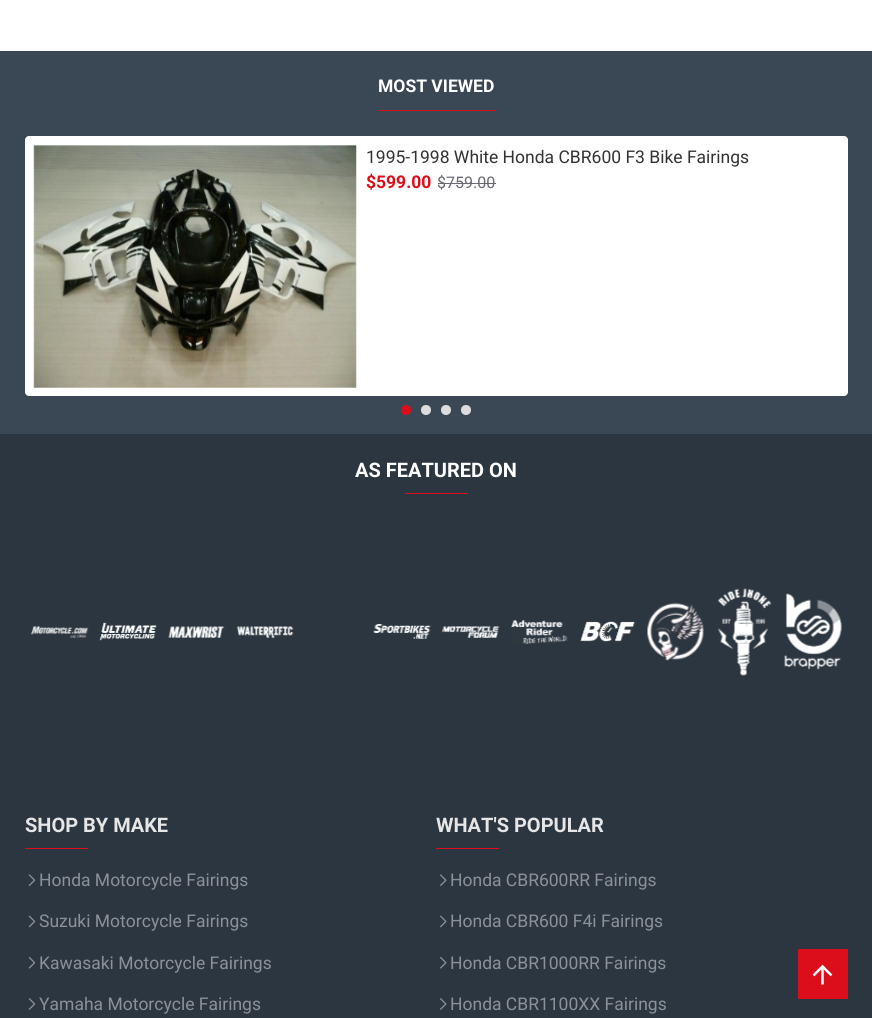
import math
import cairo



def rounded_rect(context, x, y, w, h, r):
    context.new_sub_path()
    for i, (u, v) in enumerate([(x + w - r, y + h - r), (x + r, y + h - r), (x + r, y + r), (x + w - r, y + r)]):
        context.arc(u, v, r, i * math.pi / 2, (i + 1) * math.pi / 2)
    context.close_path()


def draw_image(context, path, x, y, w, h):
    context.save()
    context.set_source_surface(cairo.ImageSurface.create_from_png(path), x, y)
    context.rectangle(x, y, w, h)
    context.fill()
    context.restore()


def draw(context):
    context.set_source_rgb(1, 1, 1)
    context.paint()
    context.set_source_rgb(44 / 255, 54 / 255, 64 / 255)
    context.rectangle(0, 434, 872, 584)
    context.fill()
    context.set_source_rgb(58 / 255, 71 / 255, 84 / 255)
    context.rectangle(0, 51, 872, 383)
    context.fill()
    context.set_source_rgb(221 / 255, 14 / 255, 28 / 255)
    context.rectangle(378, 110, 117, 1)
    context.fill()
    context.set_source_rgb(1, 1, 1)
    rounded_rect(context, 25, 136, 823, 260, 4)
    context.fill()
    draw_image(context, "images/1.png", 33, 145, 324, 243)
    context.set_source_rgb(105 / 255, 105 / 255, 115 / 255)
    context.rectangle(438, 183, 58, 1)
    context.fill()
    context.set_source_rgb(221 / 255, 14 / 255, 28 / 255)
    context.arc(406, 410, 5, 0, 2 * math.pi)
    context.fill()
    context.set_source_rgb(221 / 255, 221 / 255, 221 / 255)
    context.arc(426, 410, 5, 0, 2 * math.pi)
    context.fill()
    context.arc(446, 410, 5, 0, 2 * math.pi)
    context.fill()
    context.arc(466, 410, 5, 0, 2 * math.pi)
    context.fill()
    context.set_source_rgb(221 / 255, 14 / 255, 28 / 255)
    context.rectangle(405, 493, 63, 1)
    context.fill()
    draw_image(context, "images/2.png", 31, 626, 58, 12)
    draw_image(context, "images/3.png", 99, 622, 58, 19)
    draw_image(context, "images/4.png", 168, 626, 57, 12)
    draw_image(context, "images/5.png", 237, 626, 57, 12)
    draw_image(context, "images/6.png", 373, 624, 58, 15)
    draw_image(context, "images/7.png", 442, 626, 58, 12)
    draw_image(context, "images/8.png", 511, 620, 57, 24)
    draw_image(context, "images/9.png", 580, 621, 55, 21)
    draw_image(context, "images/10.png", 647, 602, 57, 59)
    draw_image(context, "images/11.png", 717, 588, 55, 88)
    draw_image(context, "images/12.png", 784, 593, 58, 77)
    context.rectangle(25, 848, 63, 1)
    context.fill()
    draw_image(context, "images/13.png", 28, 874, 8, 12)
    draw_image(context, "images/14.png", 28, 915, 8, 13)
    draw_image(context, "images/15.png", 28, 957, 8, 12)
    draw_image(context, "images/16.png", 28, 998, 8, 12)
    context.rectangle(436, 848, 63, 1)
    context.fill()
    draw_image(context, "images/17.png", 440, 874, 7, 12)
    draw_image(context, "images/18.png", 440, 915, 7, 13)
    draw_image(context, "images/19.png", 440, 957, 7, 12)
    draw_image(context, "images/20.png", 440, 998, 7, 12)
    context.rectangle(798, 949, 50, 50)
    context.fill()
    draw_image(context, "images/21.png", 812, 964, 21, 21)
    context.select_font_face("Roboto", cairo.FontSlant.NORMAL, cairo.FontWeight.BOLD)
    context.set_font_size(17.5)
    context.set_source_rgb(1, 1, 1)
    context.move_to(378, 92)
    context.show_text("MOST VIEWED")
    context.select_font_face("Roboto")
    context.set_source_rgb(51 / 255, 51 / 255, 51 / 255)
    context.move_to(366, 163)
    context.show_text("1995-1998 White Honda CBR600 F3 Bike Fairings")
    context.select_font_face("Roboto", cairo.FontSlant.NORMAL, cairo.FontWeight.BOLD)
    context.set_source_rgb(221 / 255, 14 / 255, 28 / 255)
    context.move_to(366, 188)
    context.show_text("$599.00")
    context.select_font_face("Roboto")
    context.set_font_size(16)
    context.set_source_rgb(105 / 255, 105 / 255, 115 / 255)
    context.move_to(437, 188)
    context.show_text("$759.00")
    context.select_font_face("Roboto", cairo.FontSlant.NORMAL, cairo.FontWeight.BOLD)
    context.set_font_size(20)
    context.set_source_rgb(1, 1, 1)
    context.move_to(355, 477)
    context.show_text("AS FEATURED ON")
    context.set_source_rgb(230 / 255, 230 / 255, 230 / 255)
    context.move_to(25, 832)
    context.show_text("SHOP BY MAKE")
    context.select_font_face("Roboto")
    context.set_font_size(17.5)
    context.set_source_rgb(139 / 255, 145 / 255, 152 / 255)
    context.move_to(39, 886)
    context.show_text("Honda Motorcycle Fairings")
    context.move_to(39, 927)
    context.show_text("Suzuki Motorcycle Fairings")
    context.move_to(39, 969)
    context.show_text("Kawasaki Motorcycle Fairings")
    context.move_to(39, 1010)
    context.show_text("Yamaha Motorcycle Fairings")
    context.select_font_face("Roboto", cairo.FontSlant.NORMAL, cairo.FontWeight.BOLD)
    context.set_font_size(20)
    context.set_source_rgb(230 / 255, 230 / 255, 230 / 255)
    context.move_to(436, 832)
    context.show_text("WHAT'S POPULAR")
    context.select_font_face("Roboto")
    context.set_font_size(17.5)
    context.set_source_rgb(139 / 255, 145 / 255, 152 / 255)
    context.move_to(450, 886)
    context.show_text("Honda CBR600RR Fairings")
    context.move_to(450, 927)
    context.show_text("Honda CBR600 F4i Fairings")
    context.move_to(450, 969)
    context.show_text("Honda CBR1000RR Fairings")
    context.move_to(450, 1010)
    context.show_text("Honda CBR1100XX Fairings")


surface = cairo.ImageSurface(cairo.Format.RGB24, 872, 1018)
context = cairo.Context(surface)
options = cairo.FontOptions()
options.set_hint_metrics(cairo.HintMetrics.OFF)
options.set_hint_style(cairo.HintStyle.NONE)
context.set_font_options(options)
context.set_miter_limit(4)
draw(context)
surface.write_to_png("out.png")
